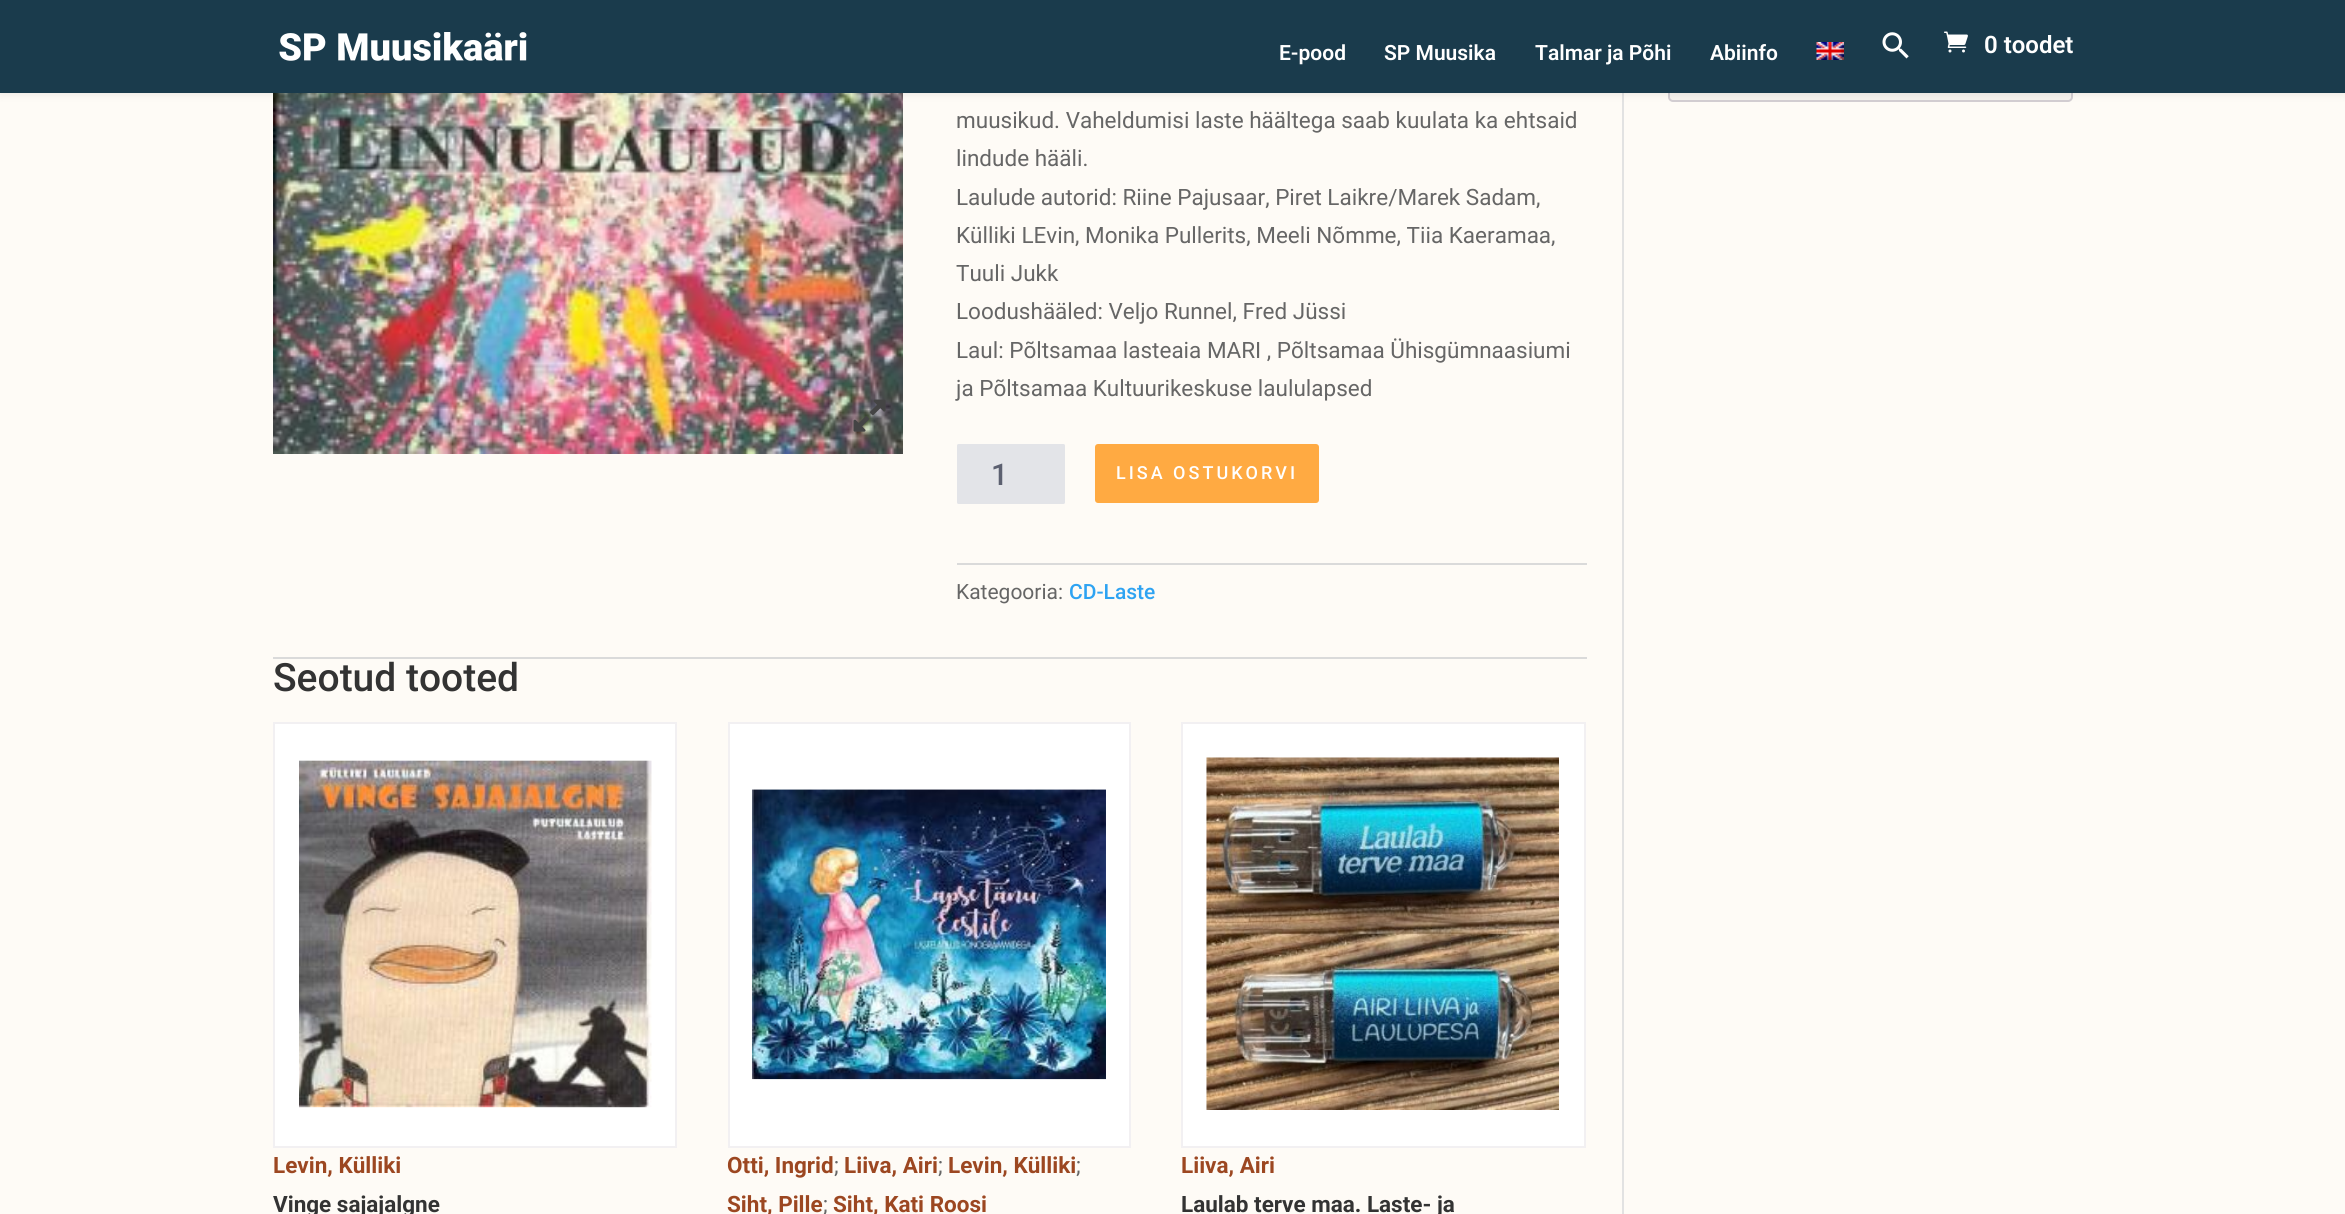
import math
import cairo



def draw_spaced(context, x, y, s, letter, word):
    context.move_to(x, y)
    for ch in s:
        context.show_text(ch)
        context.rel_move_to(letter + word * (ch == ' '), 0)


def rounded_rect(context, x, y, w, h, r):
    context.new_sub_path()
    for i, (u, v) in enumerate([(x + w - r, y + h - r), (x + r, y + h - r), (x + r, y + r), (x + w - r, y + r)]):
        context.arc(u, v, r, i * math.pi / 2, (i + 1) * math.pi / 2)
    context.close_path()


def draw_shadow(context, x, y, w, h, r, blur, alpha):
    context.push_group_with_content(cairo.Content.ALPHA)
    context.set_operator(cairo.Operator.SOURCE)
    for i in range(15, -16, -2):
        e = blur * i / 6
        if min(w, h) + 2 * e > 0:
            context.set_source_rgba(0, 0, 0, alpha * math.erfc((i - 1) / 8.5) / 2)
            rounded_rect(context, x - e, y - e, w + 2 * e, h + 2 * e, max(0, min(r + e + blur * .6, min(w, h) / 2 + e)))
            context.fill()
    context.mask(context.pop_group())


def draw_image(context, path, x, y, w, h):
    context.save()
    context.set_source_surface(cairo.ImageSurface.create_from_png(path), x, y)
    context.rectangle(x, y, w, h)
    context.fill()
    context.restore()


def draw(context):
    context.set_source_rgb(254 / 255, 251 / 255, 246 / 255)
    context.paint()
    context.set_source_rgb(246 / 255, 243 / 255, 238 / 255)
    rounded_rect(context, 1669, 43, 403, 58, 4)
    context.fill_preserve()
    context.set_source_rgb(211 / 255, 206 / 255, 210 / 255)
    context.stroke()
    draw_image(context, "images/5.png", 273, 93, 630, 361)
    context.set_source_rgb(226 / 255, 226 / 255, 226 / 255)
    context.rectangle(1622, 93, 2, 1121)
    context.fill()
    context.set_source_rgb(0, 0, 0)
    draw_shadow(context, 0, 0, 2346, 93, 0, 5, 0.1)
    context.set_source_rgb(26 / 255, 59 / 255, 76 / 255)
    context.rectangle(0, 0, 2345, 93)
    context.fill()
    draw_image(context, "images/1.png", 279, 32, 248, 29)
    draw_image(context, "images/2.png", 1816, 42, 28, 18)
    draw_image(context, "images/3.png", 1882, 32, 27, 27)
    draw_image(context, "images/4.png", 1944, 31, 24, 22)
    context.set_source_rgb(218 / 255, 218 / 255, 218 / 255)
    context.rectangle(273, 657, 1314, 2)
    context.fill()
    draw_image(context, "images/6.png", 853, 399, 33, 33)
    context.set_source_rgb(227 / 255, 228 / 255, 232 / 255)
    rounded_rect(context, 957, 444, 108, 60, 1.5)
    context.fill()
    context.set_source_rgb(1, 170 / 255, 66 / 255)
    rounded_rect(context, 1095, 444, 224, 59, 3)
    context.fill()
    context.set_source_rgb(218 / 255, 218 / 255, 218 / 255)
    context.rectangle(957, 563, 630, 2)
    context.fill()
    context.set_source_rgb(1, 1, 1)
    context.rectangle(274, 723, 402, 424)
    context.fill_preserve()
    context.set_source_rgb(242 / 255, 240 / 255, 242 / 255)
    context.stroke()
    draw_image(context, "images/7.png", 299, 760, 353, 348)
    context.set_source_rgb(1, 1, 1)
    context.rectangle(729, 723, 401, 424)
    context.fill_preserve()
    context.set_source_rgb(242 / 255, 240 / 255, 242 / 255)
    context.stroke()
    draw_image(context, "images/8.png", 752, 789, 354, 291)
    context.set_source_rgb(1, 1, 1)
    context.rectangle(1182, 723, 403, 424)
    context.fill_preserve()
    context.set_source_rgb(242 / 255, 240 / 255, 242 / 255)
    context.stroke()
    draw_image(context, "images/9.png", 1206, 757, 353, 353)
    context.select_font_face("Roboto SemiBold")
    context.set_font_size(21)
    context.set_source_rgb(1, 1, 1)
    context.move_to(1279, 60)
    context.show_text("E-pood")
    context.move_to(1384, 60)
    context.show_text("SP Muusika")
    context.move_to(1535, 60)
    context.show_text("Talmar ja Põhi")
    context.move_to(1710, 60)
    context.show_text("Abiinfo")
    context.set_font_size(24)
    context.move_to(1984, 53)
    context.show_text("0 toodet")
    context.select_font_face("Roboto")
    context.set_font_size(22.5)
    context.set_source_rgb(102 / 255, 102 / 255, 102 / 255)
    context.move_to(956, 128)
    context.show_text("muusikud. Vaheldumisi laste häältega saab kuulata ka ehtsaid")
    context.move_to(956, 166)
    context.show_text("lindude hääli.")
    context.move_to(956, 205)
    context.show_text("Laulude autorid: Riine Pajusaar, Piret Laikre/Marek Sadam,")
    context.move_to(956, 243)
    context.show_text("Külliki LEvin, Monika Pullerits, Meeli Nõmme, Tiia Kaeramaa,")
    context.move_to(956, 281)
    context.show_text("Tuuli Jukk")
    context.move_to(956, 319)
    context.show_text("Loodushääled: Veljo Runnel, Fred Jüssi")
    context.move_to(956, 358)
    context.show_text("Laul: Põltsamaa lasteaia MARI , Põltsamaa Ühisgümnaasiumi")
    context.move_to(956, 396)
    context.show_text("ja Põltsamaa Kultuurikeskuse laululapsed")
    context.select_font_face("Roboto Medium")
    context.set_font_size(30)
    context.set_source_rgb(92 / 255, 96 / 255, 112 / 255)
    context.move_to(991, 485)
    context.show_text("1")
    context.set_font_size(18)
    context.set_source_rgb(1, 1, 1)
    draw_spaced(context, 1116, 479, "LISA OSTUKORVI", 3, 0)
    context.select_font_face("Roboto")
    context.set_font_size(21)
    context.set_source_rgb(102 / 255, 102 / 255, 102 / 255)
    context.move_to(956, 599)
    context.show_text("Kategooria:")
    context.select_font_face("Roboto Medium")
    context.set_source_rgb(46 / 255, 163 / 255, 242 / 255)
    context.move_to(1069, 599)
    context.show_text("CD-Laste")
    context.set_font_size(39)
    context.set_source_rgb(51 / 255, 51 / 255, 51 / 255)
    context.move_to(273, 691)
    context.show_text("Seotud tooted")
    context.select_font_face("Roboto", cairo.FontSlant.NORMAL, cairo.FontWeight.BOLD)
    context.set_font_size(22.5)
    context.set_source_rgb(156 / 255, 71 / 255, 33 / 255)
    context.move_to(273, 1173)
    context.show_text("Levin, Külliki")
    context.set_source_rgb(51 / 255, 51 / 255, 51 / 255)
    context.move_to(273, 1212)
    context.show_text("Vinge sajajalgne")
    context.set_source_rgb(156 / 255, 71 / 255, 33 / 255)
    context.move_to(727, 1173)
    context.show_text("Otti, Ingrid")
    context.select_font_face("Roboto")
    context.set_source_rgb(102 / 255, 102 / 255, 102 / 255)
    context.move_to(834, 1173)
    context.show_text(";")
    context.select_font_face("Roboto", cairo.FontSlant.NORMAL, cairo.FontWeight.BOLD)
    context.set_source_rgb(156 / 255, 71 / 255, 33 / 255)
    context.move_to(844, 1173)
    context.show_text("Liiva, Airi")
    context.select_font_face("Roboto")
    context.set_source_rgb(102 / 255, 102 / 255, 102 / 255)
    context.move_to(938, 1173)
    context.show_text(";")
    context.select_font_face("Roboto", cairo.FontSlant.NORMAL, cairo.FontWeight.BOLD)
    context.set_source_rgb(156 / 255, 71 / 255, 33 / 255)
    context.move_to(948, 1173)
    context.show_text("Levin, Külliki")
    context.select_font_face("Roboto")
    context.set_source_rgb(102 / 255, 102 / 255, 102 / 255)
    context.move_to(1076, 1173)
    context.show_text(";")
    context.select_font_face("Roboto", cairo.FontSlant.NORMAL, cairo.FontWeight.BOLD)
    context.set_source_rgb(156 / 255, 71 / 255, 33 / 255)
    context.move_to(727, 1212)
    context.show_text("Siht, Pille")
    context.select_font_face("Roboto")
    context.set_source_rgb(102 / 255, 102 / 255, 102 / 255)
    context.move_to(823, 1212)
    context.show_text(";")
    context.select_font_face("Roboto", cairo.FontSlant.NORMAL, cairo.FontWeight.BOLD)
    context.set_source_rgb(156 / 255, 71 / 255, 33 / 255)
    context.move_to(833, 1212)
    context.show_text("Siht, Kati Roosi")
    context.move_to(1181, 1173)
    context.show_text("Liiva, Airi")
    context.set_source_rgb(51 / 255, 51 / 255, 51 / 255)
    context.move_to(1181, 1212)
    context.show_text("Laulab terve maa. Laste- ja")


surface = cairo.ImageSurface(cairo.Format.RGB24, 2345, 1214)
context = cairo.Context(surface)
options = cairo.FontOptions()
options.set_hint_metrics(cairo.HintMetrics.OFF)
options.set_hint_style(cairo.HintStyle.NONE)
context.set_font_options(options)
context.set_miter_limit(4)
draw(context)
surface.write_to_png("out.png")
